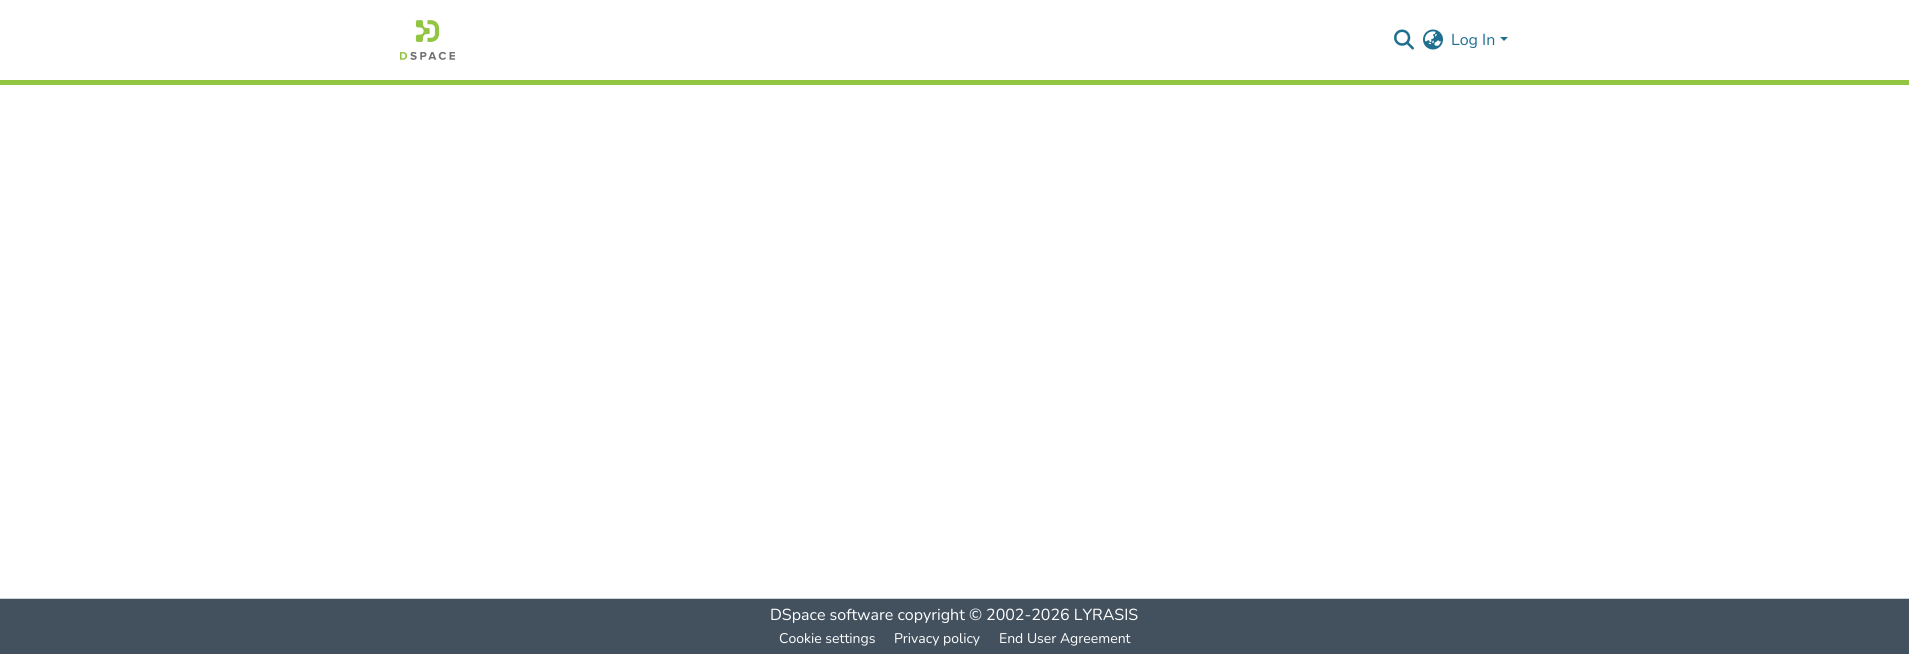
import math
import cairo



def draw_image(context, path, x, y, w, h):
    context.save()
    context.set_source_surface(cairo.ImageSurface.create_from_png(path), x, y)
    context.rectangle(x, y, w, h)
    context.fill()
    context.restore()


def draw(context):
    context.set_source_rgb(1, 1, 1)
    context.paint()
    context.set_source_rgb(146 / 255, 198 / 255, 66 / 255)
    context.rectangle(0, 80, 1909, 5)
    context.fill()
    draw_image(context, "images/1.png", 400, 20, 55, 40)
    draw_image(context, "images/2.png", 1394, 29, 20, 21)
    draw_image(context, "images/3.png", 1423, 29, 20, 21)
    context.set_source_rgb(30 / 255, 111 / 255, 144 / 255)
    context.new_path()
    context.move_to(1500, 37)
    context.line_to(1508, 37)
    context.line_to(1504, 41)
    context.close_path()
    context.fill()
    context.set_source_rgb(67 / 255, 81 / 255, 95 / 255)
    context.rectangle(0, 599, 1909, 55)
    context.fill()
    context.set_source_rgb(206 / 255, 212 / 255, 218 / 255)
    context.rectangle(0, 598, 1909, 1)
    context.fill()
    context.set_source_rgb(73 / 255, 80 / 255, 87 / 255)
    context.rectangle(884, 627, 1, 23)
    context.fill()
    context.rectangle(989, 627, 1, 23)
    context.fill()
    context.select_font_face("Nunito")
    context.set_font_size(16)
    context.set_source_rgb(30 / 255, 111 / 255, 144 / 255)
    context.move_to(1451, 45)
    context.show_text("Log In")
    context.set_source_rgb(1, 1, 1)
    context.move_to(770, 620)
    context.show_text("DSpace software copyright © 2002-2026 LYRASIS")
    context.set_font_size(14)
    context.move_to(779, 643)
    context.show_text("Cookie settings")
    context.move_to(894, 643)
    context.show_text("Privacy policy")
    context.move_to(999, 643)
    context.show_text("End User Agreement")


surface = cairo.ImageSurface(cairo.Format.RGB24, 1909, 654)
context = cairo.Context(surface)
options = cairo.FontOptions()
options.set_hint_metrics(cairo.HintMetrics.OFF)
options.set_hint_style(cairo.HintStyle.NONE)
context.set_font_options(options)
context.set_miter_limit(4)
draw(context)
surface.write_to_png("out.png")
